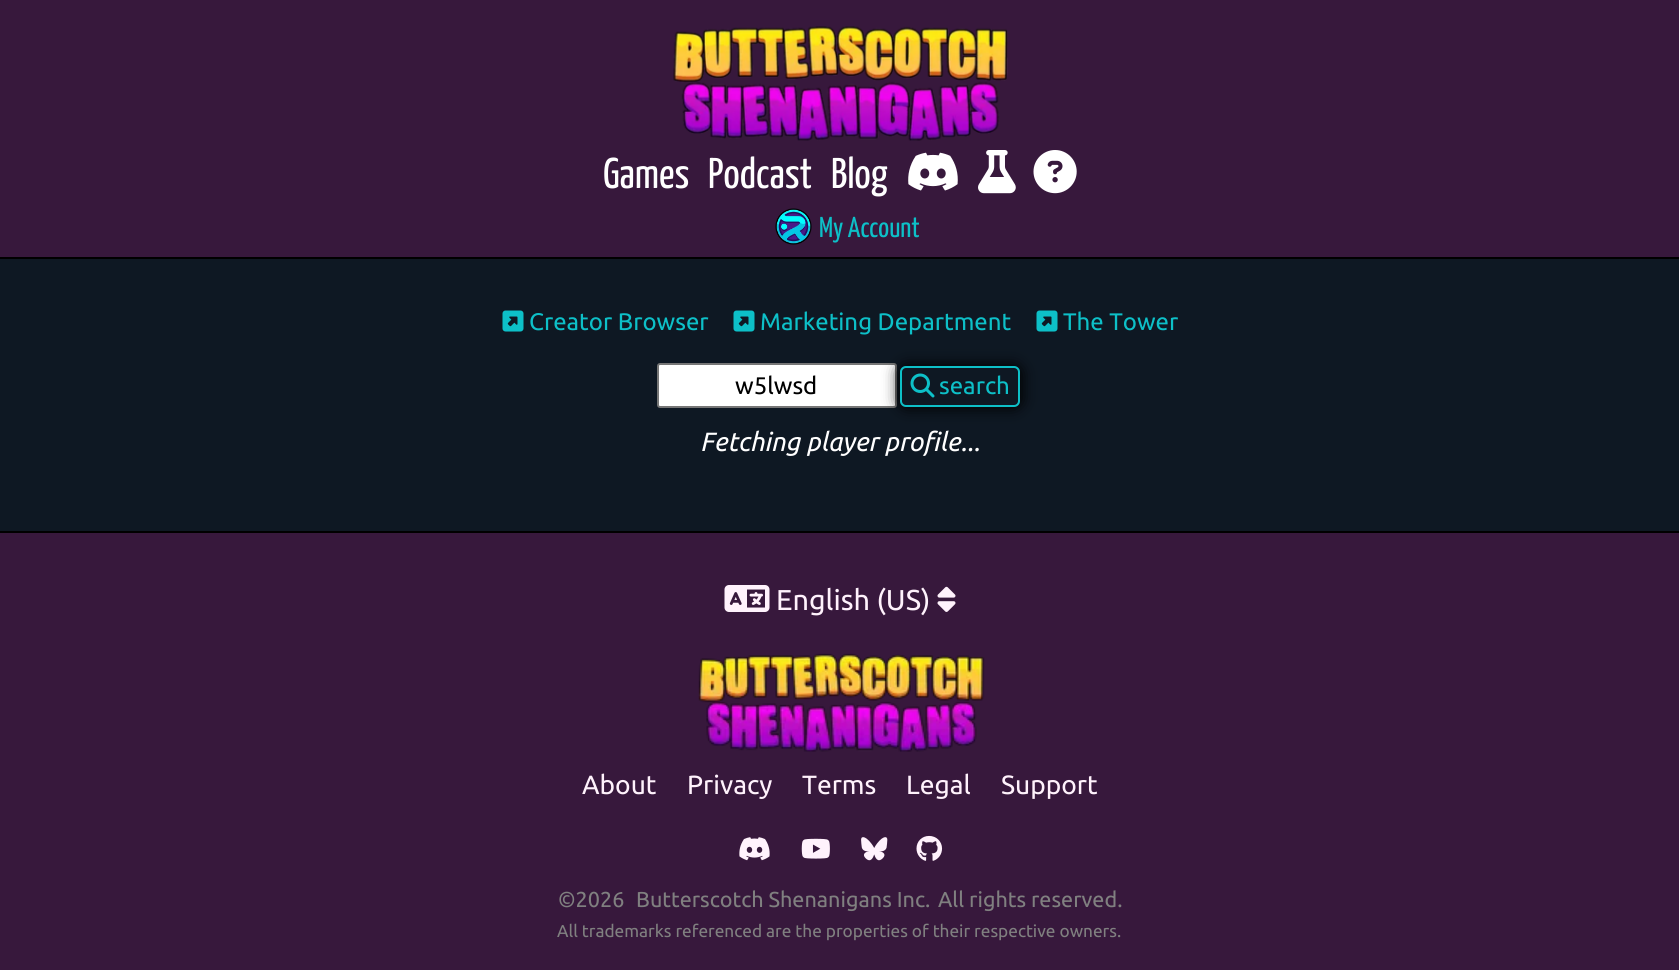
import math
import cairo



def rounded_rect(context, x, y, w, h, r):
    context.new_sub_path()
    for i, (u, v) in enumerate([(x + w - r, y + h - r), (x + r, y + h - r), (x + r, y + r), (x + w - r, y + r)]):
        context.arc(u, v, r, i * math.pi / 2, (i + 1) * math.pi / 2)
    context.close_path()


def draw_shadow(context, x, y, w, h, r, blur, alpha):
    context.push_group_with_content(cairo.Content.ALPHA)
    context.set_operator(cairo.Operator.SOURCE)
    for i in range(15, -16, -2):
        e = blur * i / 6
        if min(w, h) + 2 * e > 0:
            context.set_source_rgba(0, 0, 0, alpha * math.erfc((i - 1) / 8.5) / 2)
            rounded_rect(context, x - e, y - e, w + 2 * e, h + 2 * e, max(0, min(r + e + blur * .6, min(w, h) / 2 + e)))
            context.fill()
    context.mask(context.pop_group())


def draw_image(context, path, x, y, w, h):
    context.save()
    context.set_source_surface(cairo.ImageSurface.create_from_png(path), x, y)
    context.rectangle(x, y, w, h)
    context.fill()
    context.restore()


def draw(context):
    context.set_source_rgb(14 / 255, 24 / 255, 35 / 255)
    context.paint()
    context.set_source_rgb(55 / 255, 24 / 255, 60 / 255)
    context.rectangle(0, 0, 1679, 257)
    context.fill()
    context.set_source_rgb(0, 0, 0)
    context.rectangle(0, 257, 1679, 2)
    context.fill()
    draw_image(context, "images/1.png", 673, 26, 335, 115)
    draw_image(context, "images/2.png", 908, 152, 50, 39)
    draw_image(context, "images/3.png", 978, 150, 38, 44)
    draw_image(context, "images/4.png", 1033, 150, 44, 44)
    draw_image(context, "images/5.png", 775, 208, 37, 37)
    draw_image(context, "images/6.png", 502, 310, 22, 22)
    draw_image(context, "images/6.png", 733, 310, 22, 22)
    draw_image(context, "images/6.png", 1036, 310, 22, 22)
    context.set_source_rgb(1, 1, 1)
    rounded_rect(context, 658, 364, 238, 43, 2)
    context.fill_preserve()
    context.set_source_rgb(118 / 255, 118 / 255, 118 / 255)
    context.stroke()
    context.save()
    context.set_fill_rule(cairo.FillRule.EVEN_ODD)
    context.new_path()
    context.move_to(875, 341)
    context.line_to(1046, 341)
    context.line_to(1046, 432)
    context.line_to(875, 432)
    context.close_path()
    context.move_to(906, 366)
    context.line_to(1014, 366)
    context.curve_to(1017.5, 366, 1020, 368.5, 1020, 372)
    context.line_to(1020, 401)
    context.curve_to(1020, 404.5, 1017.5, 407, 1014, 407)
    context.line_to(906, 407)
    context.curve_to(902.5, 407, 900, 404.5, 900, 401)
    context.line_to(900, 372)
    context.curve_to(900, 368.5, 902.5, 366, 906, 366)
    context.close_path()
    context.clip()
    context.set_source_rgb(0, 0, 0)
    draw_shadow(context, 899, 365, 123, 43, 8, 7.5, 1)
    context.restore()
    rounded_rect(context, 901, 367, 118, 39, 5)
    context.set_source_rgb(13 / 255, 192 / 255, 200 / 255)
    context.stroke()
    draw_image(context, "images/7.png", 910, 373, 25, 25)
    context.set_source_rgb(55 / 255, 24 / 255, 60 / 255)
    context.rectangle(0, 533, 1679, 437)
    context.fill()
    context.set_source_rgb(0, 0, 0)
    context.rectangle(0, 531, 1679, 2)
    context.fill()
    draw_image(context, "images/8.png", 724, 585, 46, 27)
    draw_image(context, "images/9.png", 937, 586, 19, 26)
    draw_image(context, "images/10.png", 698, 653, 287, 99)
    draw_image(context, "images/11.png", 739, 837, 31, 24)
    draw_image(context, "images/12.png", 801, 838, 29, 21)
    draw_image(context, "images/13.png", 861, 837, 27, 24)
    draw_image(context, "images/14.png", 916, 835, 27, 26)
    context.select_font_face("Yanone Kaffeesatz")
    context.set_font_size(43)
    context.set_source_rgb(1, 1, 1)
    context.move_to(603, 188)
    context.show_text("Games")
    context.move_to(708, 188)
    context.show_text("Podcast")
    context.move_to(831, 188)
    context.show_text("Blog")
    context.set_font_size(28.75)
    context.set_source_rgb(13 / 255, 192 / 255, 200 / 255)
    context.move_to(819, 237)
    context.show_text("My Account")
    context.select_font_face("Ubuntu")
    context.set_font_size(24)
    context.move_to(529, 330)
    context.show_text("Creator Browser")
    context.move_to(760, 330)
    context.show_text("Marketing Department")
    context.move_to(1063, 330)
    context.show_text("The Tower")
    context.set_source_rgb(0, 0, 0)
    context.move_to(735, 394)
    context.show_text("w5lwsd")
    context.set_source_rgb(13 / 255, 192 / 255, 200 / 255)
    context.move_to(939, 394)
    context.show_text("search")
    context.select_font_face("Ubuntu", cairo.FontSlant.ITALIC)
    context.set_font_size(26.4)
    context.set_source_rgb(1, 1, 1)
    context.move_to(700, 451)
    context.show_text("Fetching player profile...")
    context.select_font_face("Ubuntu")
    context.set_font_size(28.75)
    context.set_source_rgb(1, 242 / 255, 252 / 255)
    context.move_to(776, 610)
    context.show_text("English (US)")
    context.set_font_size(26.4)
    context.move_to(582, 794)
    context.show_text("About")
    context.move_to(687, 794)
    context.show_text("Privacy")
    context.move_to(802, 794)
    context.show_text("Terms")
    context.move_to(906, 794)
    context.show_text("Legal")
    context.move_to(1001, 794)
    context.show_text("Support")
    context.set_font_size(21.6)
    context.set_source_rgb(128 / 255, 128 / 255, 128 / 255)
    context.move_to(558, 907)
    context.show_text("©2026")
    context.move_to(636, 907)
    context.show_text("Butterscotch Shenanigans Inc.")
    context.move_to(938, 907)
    context.show_text("All rights reserved.")
    context.set_font_size(17.25)
    context.move_to(557, 937)
    context.show_text("All trademarks referenced are the properties of their respective owners.")


surface = cairo.ImageSurface(cairo.Format.RGB24, 1679, 970)
context = cairo.Context(surface)
options = cairo.FontOptions()
options.set_hint_metrics(cairo.HintMetrics.OFF)
options.set_hint_style(cairo.HintStyle.NONE)
context.set_font_options(options)
context.set_miter_limit(4)
draw(context)
surface.write_to_png("out.png")
